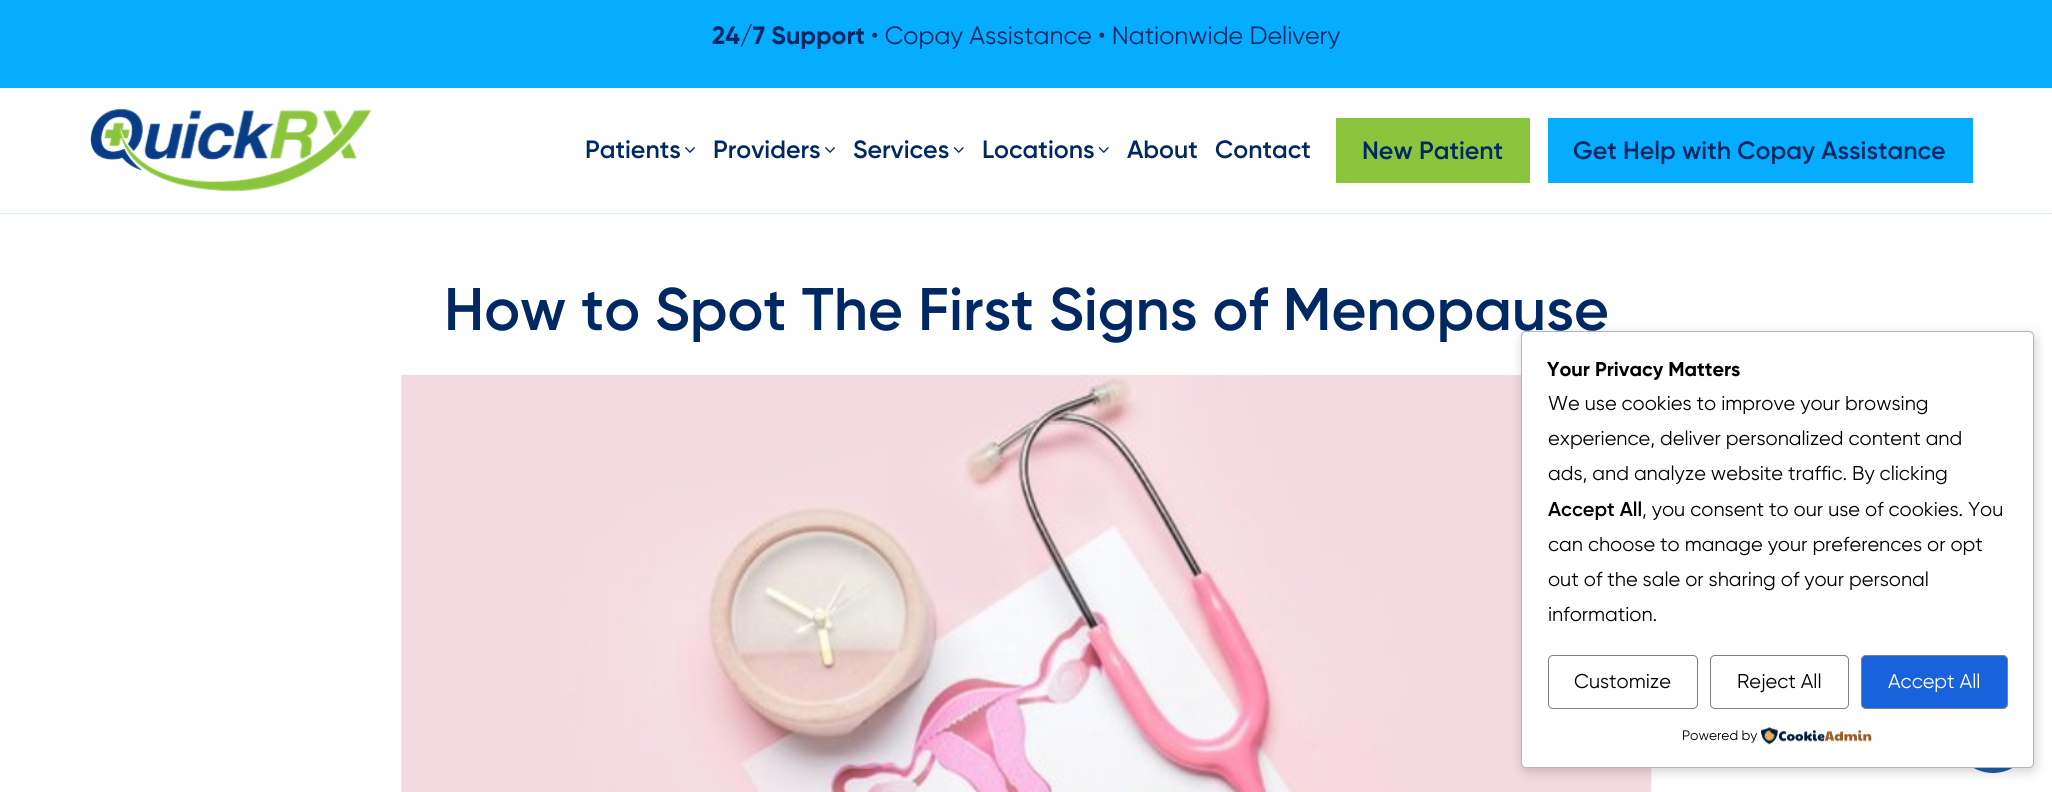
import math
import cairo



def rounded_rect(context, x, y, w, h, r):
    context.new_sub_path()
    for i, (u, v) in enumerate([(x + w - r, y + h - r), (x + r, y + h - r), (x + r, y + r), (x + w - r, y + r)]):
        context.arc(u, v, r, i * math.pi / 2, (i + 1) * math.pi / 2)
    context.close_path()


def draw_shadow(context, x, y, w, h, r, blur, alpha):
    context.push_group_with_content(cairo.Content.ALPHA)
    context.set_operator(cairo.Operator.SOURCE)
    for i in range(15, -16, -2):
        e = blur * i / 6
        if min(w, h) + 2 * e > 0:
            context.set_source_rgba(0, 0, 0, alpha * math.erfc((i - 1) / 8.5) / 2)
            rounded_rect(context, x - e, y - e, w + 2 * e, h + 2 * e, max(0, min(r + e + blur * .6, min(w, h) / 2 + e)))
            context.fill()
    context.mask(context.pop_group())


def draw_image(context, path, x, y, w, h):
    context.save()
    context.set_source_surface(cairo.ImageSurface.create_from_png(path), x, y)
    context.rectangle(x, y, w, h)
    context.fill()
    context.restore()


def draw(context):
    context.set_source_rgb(1, 1, 1)
    context.paint()
    context.set_source_rgb(6 / 255, 172 / 255, 254 / 255)
    context.rectangle(0, 0, 2052, 88)
    context.fill()
    context.set_source_rgb(214 / 255, 237 / 255, 244 / 255)
    context.rectangle(0, 213, 2052, 1)
    context.fill()
    draw_image(context, "images/1.png", 90, 108, 282, 84)
    draw_image(context, "images/2.png", 685, 147, 10, 6)
    draw_image(context, "images/2.png", 825, 147, 10, 6)
    draw_image(context, "images/3.png", 953, 147, 11, 6)
    draw_image(context, "images/3.png", 1098, 147, 11, 6)
    context.set_source_rgb(139 / 255, 197 / 255, 62 / 255)
    context.rectangle(1336, 118, 194, 65)
    context.fill()
    context.set_source_rgb(6 / 255, 172 / 255, 254 / 255)
    context.rectangle(1548, 118, 425, 65)
    context.fill()
    draw_image(context, "images/4.png", 401, 375, 1251, 417)
    context.set_source_rgb(31 / 255, 93 / 255, 170 / 255)
    context.arc(1993, 733, 40, 0, 2 * math.pi)
    context.fill()
    context.set_source_rgb(0, 0, 0)
    draw_shadow(context, 1523, 335, 512, 436, 5, 6, 0.2)
    context.select_font_face("Gilroy", cairo.FontSlant.NORMAL, cairo.FontWeight.BOLD)
    context.set_font_size(25)
    context.set_source_rgb(0, 40 / 255, 98 / 255)
    context.move_to(712, 44)
    context.show_text("24/7 Support")
    context.select_font_face("Gilroy")
    context.move_to(871, 44)
    context.show_text("• Copay Assistance • Nationwide Delivery")
    context.select_font_face("Gilroy SemiBold")
    context.move_to(585, 158)
    context.show_text("Patients")
    context.move_to(713, 158)
    context.show_text("Providers")
    context.move_to(853, 158)
    context.show_text("Services")
    context.move_to(982, 158)
    context.show_text("Locations")
    context.move_to(1127, 158)
    context.show_text("About")
    context.move_to(1215, 158)
    context.show_text("Contact")
    context.move_to(1362, 159)
    context.show_text("New Patient")
    context.move_to(1573, 159)
    context.show_text("Get Help with Copay Assistance")
    context.set_font_size(60)
    context.move_to(444, 330)
    context.show_text("How to Spot The First Signs of Menopause")
    context.set_source_rgb(1, 1, 1)
    rounded_rect(context, 1521.5, 331.5, 512, 436, 4.5)
    context.fill_preserve()
    context.set_source_rgb(171 / 255, 184 / 255, 195 / 255)
    context.set_line_width(1)
    context.stroke()
    context.select_font_face("Gilroy", cairo.FontSlant.NORMAL, cairo.FontWeight.BOLD)
    context.set_font_size(20)
    context.set_source_rgb(0, 0, 0)
    context.move_to(1547, 376)
    context.show_text("Your Privacy Matters")
    context.select_font_face("Gilroy")
    context.move_to(1548, 410)
    context.show_text("We use cookies to improve your browsing")
    context.move_to(1548, 445)
    context.show_text("experience, deliver personalized content and")
    context.move_to(1548, 480)
    context.show_text("ads, and analyze website traffic. By clicking")
    context.select_font_face("Gilroy SemiBold")
    context.move_to(1548, 516)
    context.show_text("Accept All")
    context.select_font_face("Gilroy")
    context.move_to(1642, 516)
    context.show_text(", you consent to our use of cookies. You")
    context.move_to(1548, 551)
    context.show_text("can choose to manage your preferences or opt")
    context.move_to(1548, 586)
    context.show_text("out of the sale or sharing of your personal")
    context.move_to(1548, 621)
    context.show_text("information.")
    rounded_rect(context, 1548.5, 655.5, 149, 53, 4.5)
    context.set_source_rgb(128 / 255, 128 / 255, 128 / 255)
    context.stroke()
    context.set_source_rgb(0, 0, 0)
    context.move_to(1574, 688)
    context.show_text("Customize")
    rounded_rect(context, 1710.5, 655.5, 138, 53, 4.5)
    context.set_source_rgb(128 / 255, 128 / 255, 128 / 255)
    context.stroke()
    context.set_source_rgb(0, 0, 0)
    context.move_to(1737, 688)
    context.show_text("Reject All")
    context.set_source_rgb(24 / 255, 99 / 255, 220 / 255)
    rounded_rect(context, 1861.5, 655.5, 146, 53, 4.5)
    context.fill_preserve()
    context.set_source_rgb(128 / 255, 128 / 255, 128 / 255)
    context.stroke()
    context.set_source_rgb(1, 1, 1)
    context.move_to(1888, 688)
    context.show_text("Accept All")
    context.set_font_size(13.75)
    context.set_source_rgb(0, 0, 0)
    context.move_to(1682, 740)
    context.show_text("Powered by")
    draw_image(context, "images/5.png", 1761, 727, 111, 18)


surface = cairo.ImageSurface(cairo.Format.RGB24, 2052, 792)
context = cairo.Context(surface)
options = cairo.FontOptions()
options.set_hint_metrics(cairo.HintMetrics.OFF)
options.set_hint_style(cairo.HintStyle.NONE)
context.set_font_options(options)
context.set_miter_limit(4)
draw(context)
surface.write_to_png("out.png")
